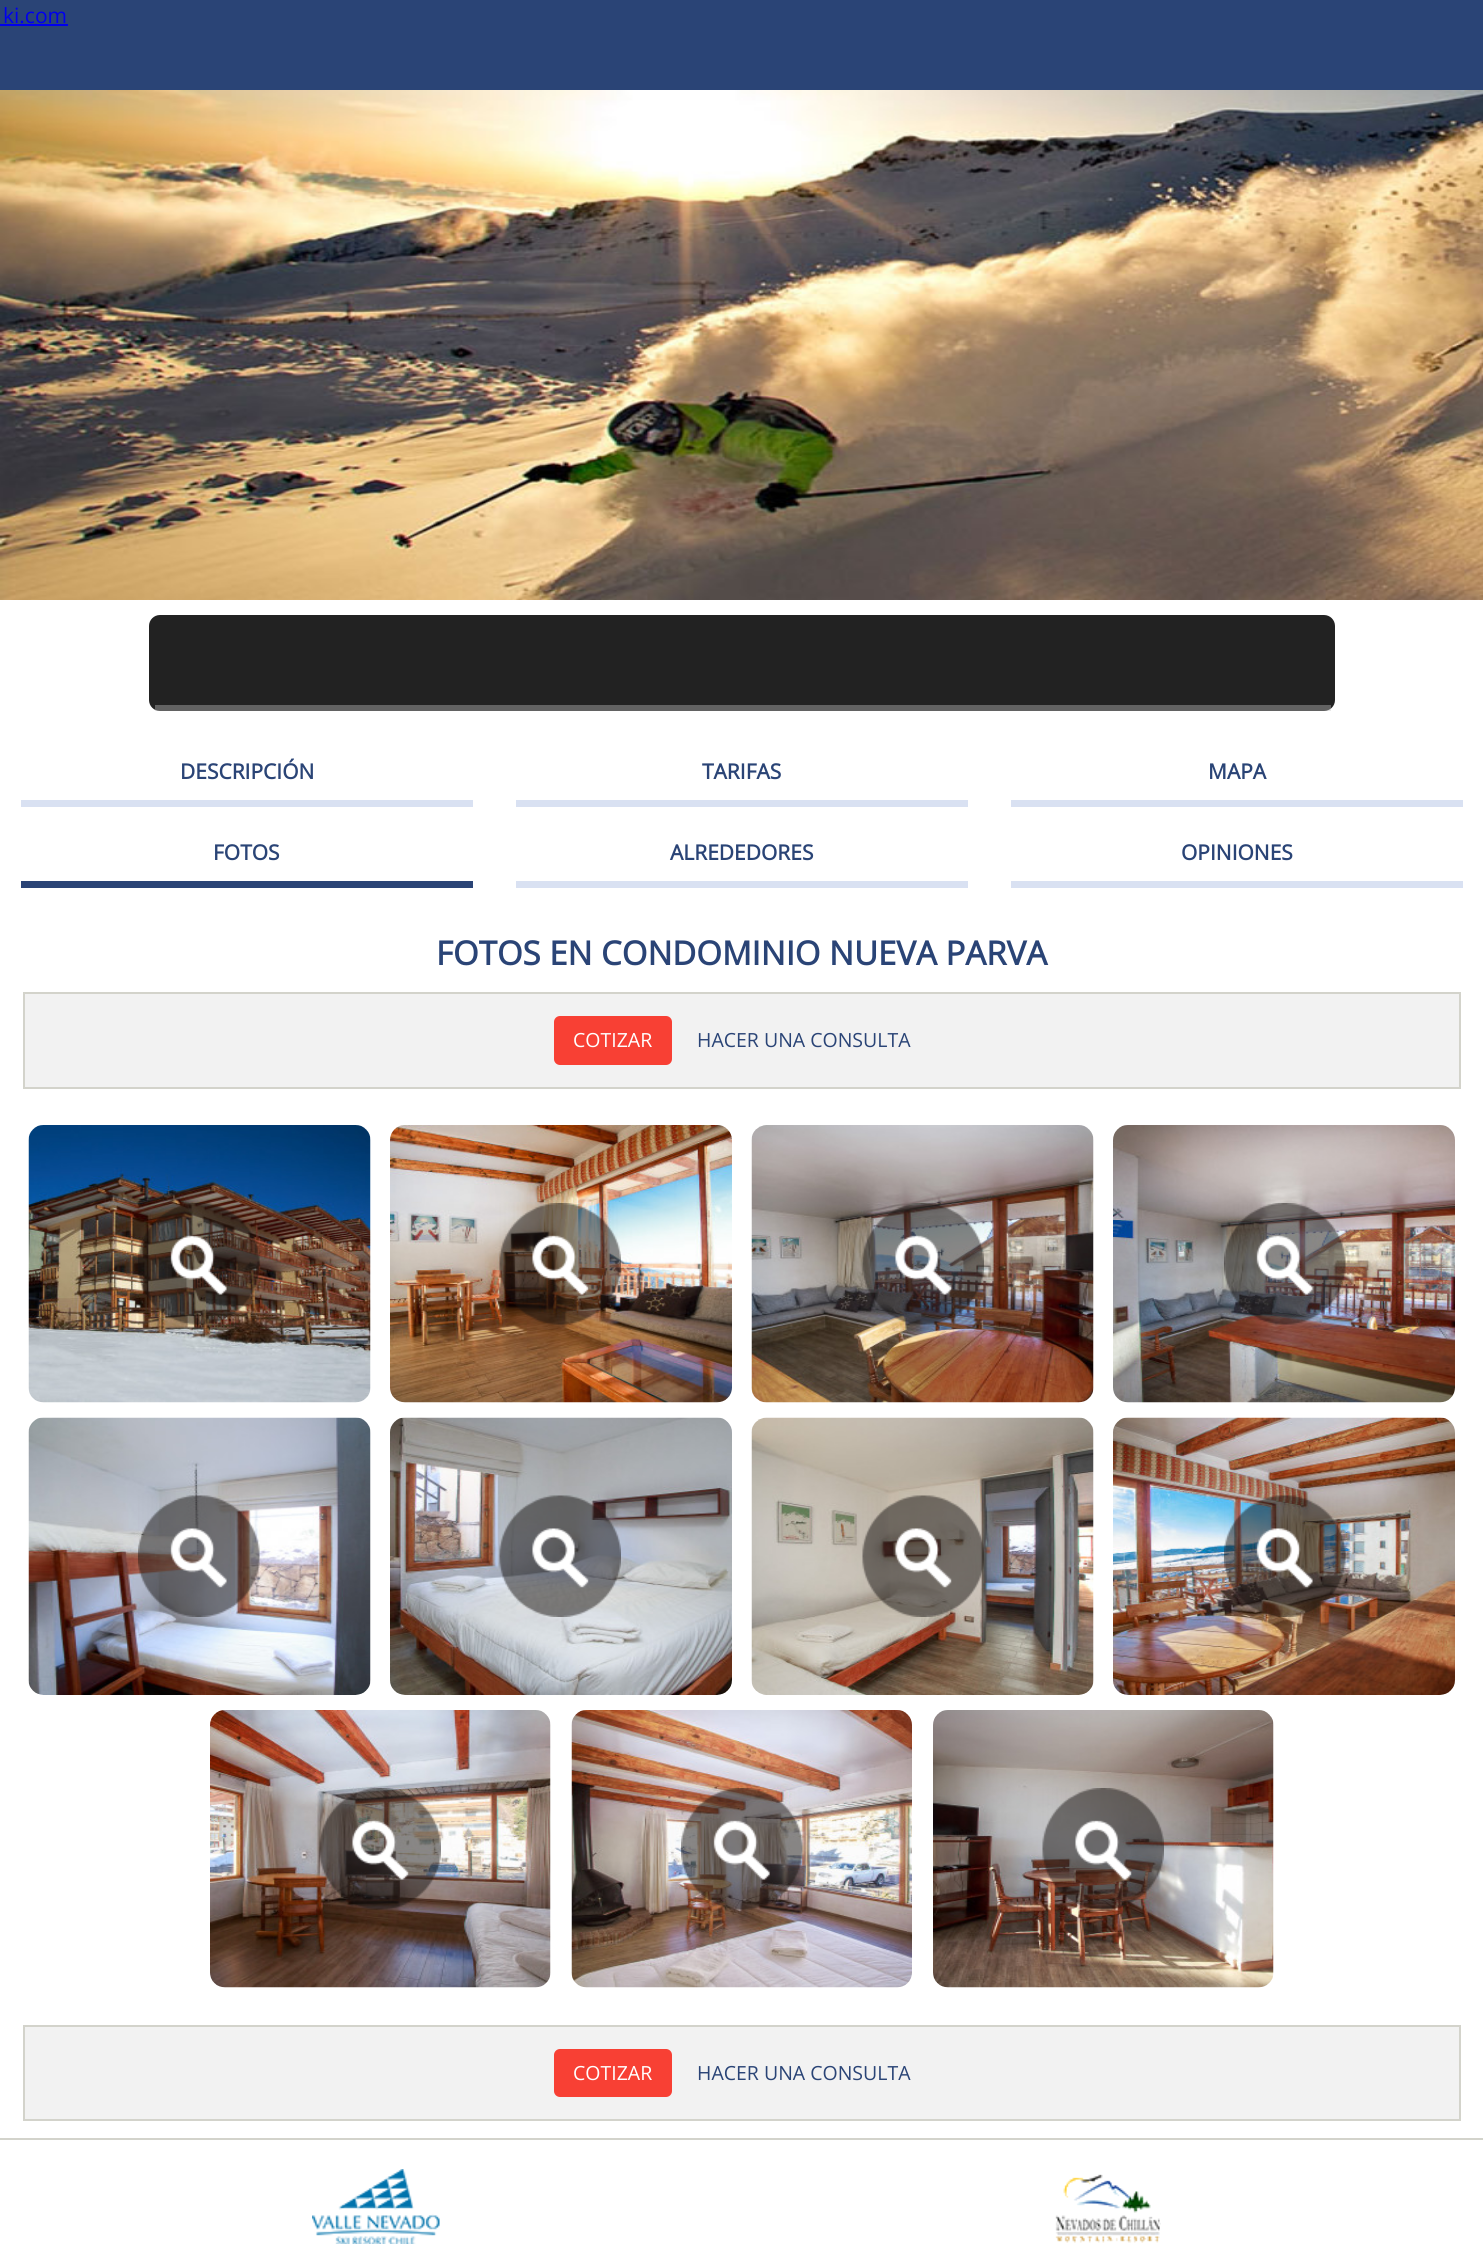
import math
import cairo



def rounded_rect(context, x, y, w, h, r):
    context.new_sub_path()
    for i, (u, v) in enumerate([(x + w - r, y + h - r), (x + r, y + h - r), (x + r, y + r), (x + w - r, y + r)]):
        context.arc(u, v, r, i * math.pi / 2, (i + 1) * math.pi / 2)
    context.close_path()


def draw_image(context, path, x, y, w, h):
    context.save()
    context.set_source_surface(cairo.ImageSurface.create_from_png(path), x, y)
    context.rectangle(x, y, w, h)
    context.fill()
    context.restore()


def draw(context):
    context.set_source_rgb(1, 1, 1)
    context.paint()
    context.set_source_rgb(42 / 255, 68 / 255, 118 / 255)
    context.rectangle(0, 0, 1483, 90)
    context.fill()
    context.set_source_rgb(0, 0, 238 / 255)
    context.rectangle(0, 24, 68, 2)
    context.fill()
    draw_image(context, "images/1.png", 0, 90, 1483, 510)
    context.set_source_rgb(34 / 255, 34 / 255, 34 / 255)
    rounded_rect(context, 149, 615, 1186, 96, 11)
    context.fill()
    context.set_source_rgba(195 / 255, 195 / 255, 195 / 255, 0.4)
    context.rectangle(155, 705, 1176, 6)
    context.fill()
    context.set_source_rgb(217 / 255, 225 / 255, 242 / 255)
    context.rectangle(21, 800, 452, 7)
    context.fill()
    context.rectangle(516, 800, 452, 7)
    context.fill()
    context.rectangle(1011, 800, 452, 7)
    context.fill()
    context.set_source_rgb(42 / 255, 68 / 255, 118 / 255)
    context.rectangle(21, 881, 452, 7)
    context.fill()
    context.set_source_rgb(217 / 255, 225 / 255, 242 / 255)
    context.rectangle(516, 881, 452, 7)
    context.fill()
    context.rectangle(1011, 881, 452, 7)
    context.fill()
    context.set_source_rgb(242 / 255, 242 / 255, 242 / 255)
    context.rectangle(24, 993, 1436, 95)
    context.fill_preserve()
    context.set_source_rgb(211 / 255, 211 / 255, 203 / 255)
    context.stroke()
    context.set_source_rgb(248 / 255, 64 / 255, 52 / 255)
    rounded_rect(context, 554, 1016, 118, 49, 6)
    context.fill()
    draw_image(context, "images/2.png", 28, 1125, 343, 278)
    draw_image(context, "images/3.png", 138, 1203, 122, 122)
    draw_image(context, "images/4.png", 390, 1125, 342, 278)
    draw_image(context, "images/5.png", 499, 1203, 122, 122)
    draw_image(context, "images/6.png", 751, 1125, 343, 278)
    draw_image(context, "images/7.png", 862, 1203, 122, 122)
    draw_image(context, "images/8.png", 1113, 1125, 342, 278)
    draw_image(context, "images/9.png", 1224, 1203, 122, 122)
    draw_image(context, "images/10.png", 28, 1417, 343, 278)
    draw_image(context, "images/11.png", 138, 1495, 122, 122)
    draw_image(context, "images/12.png", 390, 1417, 342, 278)
    draw_image(context, "images/13.png", 499, 1495, 122, 122)
    draw_image(context, "images/14.png", 751, 1417, 343, 278)
    draw_image(context, "images/15.png", 862, 1495, 122, 122)
    draw_image(context, "images/16.png", 1113, 1417, 342, 278)
    draw_image(context, "images/17.png", 1224, 1495, 122, 122)
    draw_image(context, "images/18.png", 210, 1710, 341, 278)
    draw_image(context, "images/19.png", 319, 1788, 122, 122)
    draw_image(context, "images/20.png", 571, 1710, 341, 278)
    draw_image(context, "images/21.png", 681, 1788, 122, 122)
    draw_image(context, "images/22.png", 933, 1710, 341, 278)
    draw_image(context, "images/23.png", 1042, 1788, 122, 122)
    context.set_source_rgb(242 / 255, 242 / 255, 242 / 255)
    context.rectangle(24, 2026, 1436, 94)
    context.fill_preserve()
    context.set_source_rgb(211 / 255, 211 / 255, 203 / 255)
    context.stroke()
    context.set_source_rgb(248 / 255, 64 / 255, 52 / 255)
    rounded_rect(context, 554, 2049, 118, 48, 6)
    context.fill()
    context.set_source_rgb(211 / 255, 211 / 255, 203 / 255)
    context.rectangle(0, 2138, 1483, 2)
    context.fill()
    draw_image(context, "images/24.png", 312, 2169, 128, 75)
    draw_image(context, "images/25.png", 1055, 2174, 106, 69)
    context.select_font_face("Open Sans")
    context.set_font_size(21)
    context.set_source_rgb(0, 0, 238 / 255)
    context.move_to(3, 23)
    context.show_text("ki.com")
    context.select_font_face("Open Sans", cairo.FontSlant.NORMAL, cairo.FontWeight.BOLD)
    context.set_source_rgb(42 / 255, 68 / 255, 118 / 255)
    context.move_to(180, 779)
    context.show_text("DESCRIPCIÓN")
    context.move_to(702, 779)
    context.show_text("TARIFAS")
    context.move_to(1208, 779)
    context.show_text("MAPA")
    context.move_to(213, 860)
    context.show_text("FOTOS")
    context.move_to(670, 860)
    context.show_text("ALREDEDORES")
    context.move_to(1181, 860)
    context.show_text("OPINIONES")
    context.set_font_size(33)
    context.move_to(436, 965)
    context.show_text("FOTOS EN CONDOMINIO NUEVA PARVA")
    context.select_font_face("Open Sans")
    context.set_font_size(19.5)
    context.set_source_rgb(1, 1, 1)
    context.move_to(573, 1047)
    context.show_text("COTIZAR")
    context.set_source_rgb(42 / 255, 68 / 255, 118 / 255)
    context.move_to(697, 1047)
    context.show_text("HACER UNA CONSULTA")
    context.set_source_rgb(1, 1, 1)
    context.move_to(573, 2080)
    context.show_text("COTIZAR")
    context.set_source_rgb(42 / 255, 68 / 255, 118 / 255)
    context.move_to(697, 2080)
    context.show_text("HACER UNA CONSULTA")


surface = cairo.ImageSurface(cairo.Format.RGB24, 1483, 2248)
context = cairo.Context(surface)
options = cairo.FontOptions()
options.set_hint_metrics(cairo.HintMetrics.OFF)
options.set_hint_style(cairo.HintStyle.NONE)
context.set_font_options(options)
context.set_miter_limit(4)
draw(context)
surface.write_to_png("out.png")
